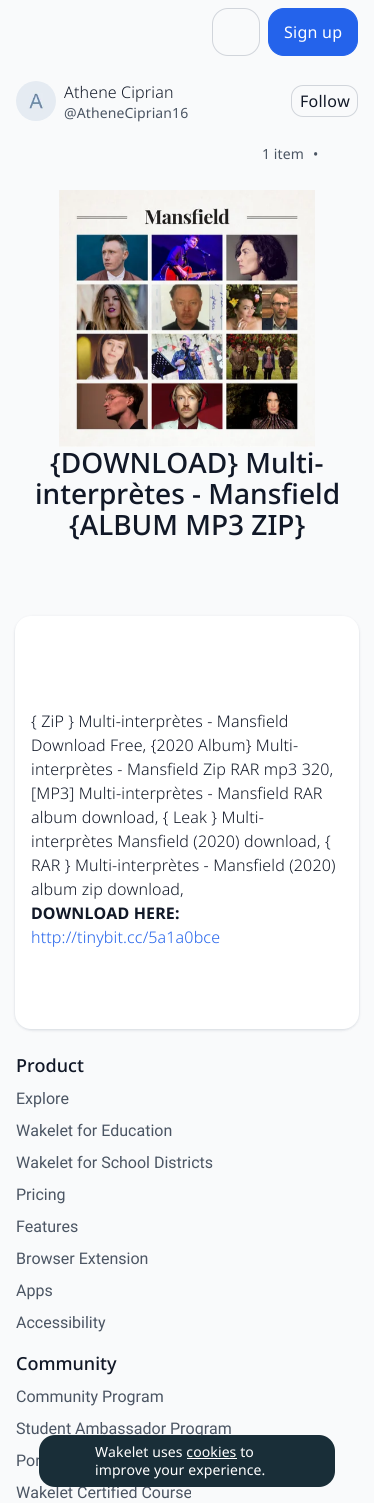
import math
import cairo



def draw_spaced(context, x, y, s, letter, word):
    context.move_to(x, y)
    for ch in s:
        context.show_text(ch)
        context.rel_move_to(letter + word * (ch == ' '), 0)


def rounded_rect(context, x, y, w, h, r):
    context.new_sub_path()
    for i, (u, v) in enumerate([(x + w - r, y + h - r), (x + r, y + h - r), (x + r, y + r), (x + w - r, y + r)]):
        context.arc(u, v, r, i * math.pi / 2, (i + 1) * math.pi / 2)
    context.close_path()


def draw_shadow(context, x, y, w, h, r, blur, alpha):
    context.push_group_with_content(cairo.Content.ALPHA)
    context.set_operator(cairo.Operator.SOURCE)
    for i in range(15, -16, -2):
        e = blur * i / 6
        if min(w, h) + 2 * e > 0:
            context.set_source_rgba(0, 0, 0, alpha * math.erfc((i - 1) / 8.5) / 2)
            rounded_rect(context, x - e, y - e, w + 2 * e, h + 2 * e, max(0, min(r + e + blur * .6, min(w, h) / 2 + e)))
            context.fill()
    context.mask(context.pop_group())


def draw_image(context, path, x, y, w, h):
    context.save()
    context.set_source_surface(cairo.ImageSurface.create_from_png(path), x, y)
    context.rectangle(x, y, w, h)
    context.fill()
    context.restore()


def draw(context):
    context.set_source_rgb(249 / 255, 250 / 255, 251 / 255)
    context.paint()
    rounded_rect(context, 212.5, 8.5, 47, 47, 15.5)
    context.set_source_rgb(209 / 255, 213 / 255, 219 / 255)
    context.set_line_width(1)
    context.stroke()
    context.set_source_rgb(36 / 255, 99 / 255, 235 / 255)
    rounded_rect(context, 268.5, 8.5, 89, 47, 15.5)
    context.fill_preserve()
    context.stroke()
    draw_image(context, "images/1.png", 16, 81, 40, 40)
    rounded_rect(context, 291.5, 85.5, 66, 31, 11.5)
    context.set_source_rgb(209 / 255, 213 / 255, 219 / 255)
    context.stroke()
    draw_image(context, "images/2.png", 59, 190, 256, 257)
    context.set_source_rgb(0, 24 / 255, 61 / 255)
    draw_shadow(context, 15, 617, 344, 413, 16, 1, 0.06)
    draw_shadow(context, 15, 617, 344, 413, 16, 1.5, 0.1)
    context.set_source_rgb(1, 1, 1)
    rounded_rect(context, 15, 616, 344, 413, 16)
    context.fill()
    context.select_font_face("Noto Sans")
    context.set_font_size(16)
    draw_spaced(context, 284, 38, "Sign up", 0.25, 0)
    context.select_font_face("Noto Sans Light")
    context.set_source_rgb(17 / 255, 24 / 255, 39 / 255)
    draw_spaced(context, 64, 98, "Athene Ciprian", 0.15, 0)
    context.select_font_face("Noto Sans")
    context.set_font_size(14)
    context.set_source_rgb(75 / 255, 85 / 255, 99 / 255)
    draw_spaced(context, 64, 118, "@AtheneCiprian16", 0.1, 0)
    context.set_font_size(16)
    context.set_source_rgb(17 / 255, 24 / 255, 39 / 255)
    draw_spaced(context, 300, 107, "Follow", 0.25, 0)
    context.set_font_size(14)
    context.set_source_rgb(75 / 255, 85 / 255, 99 / 255)
    draw_spaced(context, 262, 159, "1 item", 0.1, 0)
    draw_spaced(context, 313, 159, "•", 0.1, 0)
    context.select_font_face("Noto Sans Medium")
    context.set_font_size(28)
    context.set_source_rgb(17 / 255, 24 / 255, 39 / 255)
    context.move_to(50, 473)
    context.show_text("{DOWNLOAD} Multi-")
    context.move_to(35, 504)
    context.show_text("interprètes - Mansfield")
    context.move_to(69, 535)
    context.show_text("{ALBUM MP3 ZIP}")
    context.select_font_face("Noto Sans Light")
    context.set_font_size(16)
    draw_spaced(context, 31, 727, "{ ZiP } Multi-interprètes - Mansfield", 0.15, 0)
    draw_spaced(context, 31, 751, "Download Free, {2020 Album} Multi-", 0.15, 0)
    draw_spaced(context, 31, 775, "interprètes - Mansfield Zip RAR mp3 320,", 0.15, 0)
    draw_spaced(context, 31, 799, "[MP3] Multi-interprètes - Mansfield RAR", 0.15, 0)
    draw_spaced(context, 31, 823, "album download, { Leak } Multi-", 0.15, 0)
    draw_spaced(context, 31, 847, "interprètes Mansfield (2020) download, {", 0.15, 0)
    draw_spaced(context, 31, 871, "RAR } Multi-interprètes - Mansfield (2020)", 0.15, 0)
    draw_spaced(context, 31, 895, "album zip download,", 0.15, 0)
    context.select_font_face("Noto Sans", cairo.FontSlant.NORMAL, cairo.FontWeight.BOLD)
    draw_spaced(context, 31, 919, "DOWNLOAD HERE:", 0.15, 0)
    context.select_font_face("Noto Sans Light")
    context.set_source_rgb(36 / 255, 99 / 255, 235 / 255)
    draw_spaced(context, 31, 943, "http://tinybit.cc/5a1a0bce", 0.15, 0)
    context.select_font_face("Noto Sans Medium")
    context.set_font_size(18)
    context.set_source_rgb(17 / 255, 24 / 255, 39 / 255)
    context.move_to(16, 1072)
    context.show_text("Product")
    context.select_font_face("Roboto")
    context.set_font_size(16)
    context.set_source_rgb(75 / 255, 85 / 255, 99 / 255)
    context.move_to(16, 1104)
    context.show_text("Explore")
    context.move_to(16, 1136)
    context.show_text("Wakelet for Education")
    context.move_to(16, 1168)
    context.show_text("Wakelet for School Districts")
    context.move_to(16, 1200)
    context.show_text("Pricing")
    context.move_to(16, 1232)
    context.show_text("Features")
    context.move_to(16, 1264)
    context.show_text("Browser Extension")
    context.move_to(16, 1296)
    context.show_text("Apps")
    context.move_to(16, 1328)
    context.show_text("Accessibility")
    context.select_font_face("Noto Sans Medium")
    context.set_font_size(18)
    context.set_source_rgb(17 / 255, 24 / 255, 39 / 255)
    context.move_to(16, 1370)
    context.show_text("Community")
    context.select_font_face("Roboto")
    context.set_font_size(16)
    context.set_source_rgb(75 / 255, 85 / 255, 99 / 255)
    context.move_to(16, 1402)
    context.show_text("Community Program")
    context.move_to(16, 1434)
    context.show_text("Student Ambassador Program")
    context.move_to(16, 1466)
    context.show_text("Por")
    context.move_to(16, 1498)
    context.show_text("Wakelet Certified Course")
    context.set_source_rgb(25 / 255, 46 / 255, 56 / 255)
    rounded_rect(context, 39, 1435, 296, 52, 16)
    context.fill()
    context.select_font_face("Noto Sans")
    context.set_font_size(14)
    context.set_source_rgb(1, 1, 1)
    draw_spaced(context, 95, 1457, "Wakelet uses cookies to", 0.1, 0)
    context.rectangle(187, 1458, 50, 1)
    context.fill()
    draw_spaced(context, 95, 1475, "improve your experience.", 0.1, 0)


surface = cairo.ImageSurface(cairo.Format.RGB24, 374, 1503)
context = cairo.Context(surface)
options = cairo.FontOptions()
options.set_hint_metrics(cairo.HintMetrics.OFF)
options.set_hint_style(cairo.HintStyle.NONE)
context.set_font_options(options)
context.set_miter_limit(4)
draw(context)
surface.write_to_png("out.png")
